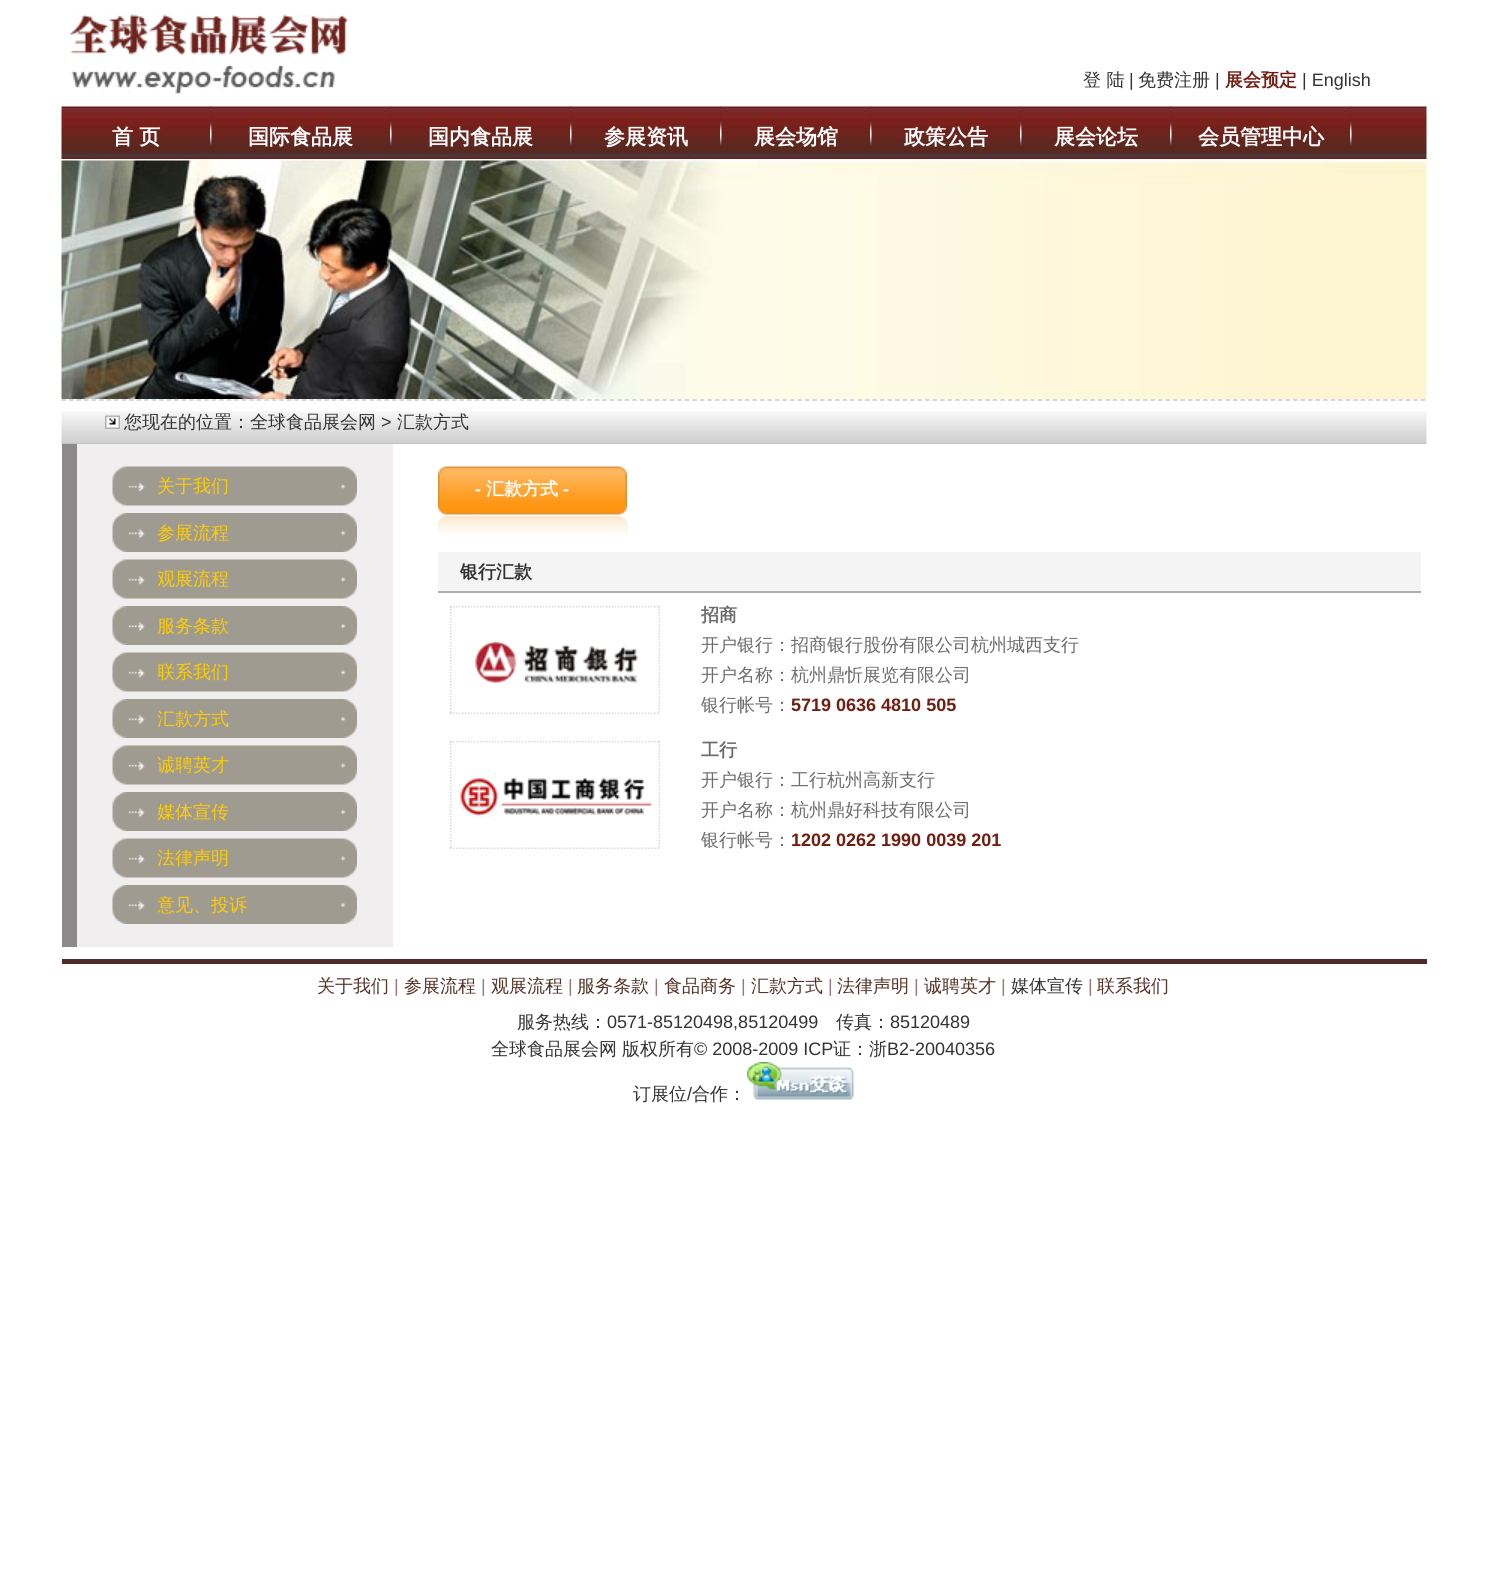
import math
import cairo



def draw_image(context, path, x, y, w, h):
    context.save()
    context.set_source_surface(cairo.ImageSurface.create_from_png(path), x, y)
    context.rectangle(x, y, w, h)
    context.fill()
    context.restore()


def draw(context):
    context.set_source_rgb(1, 1, 1)
    context.paint()
    draw_image(context, "images/1.png", 63, 13, 288, 82)
    draw_image(context, "images/2.png", 61, 106, 1366, 53)
    draw_image(context, "images/3.png", 210, 106, 2, 41)
    draw_image(context, "images/3.png", 390, 106, 2, 41)
    draw_image(context, "images/3.png", 570, 106, 2, 41)
    draw_image(context, "images/3.png", 720, 106, 2, 41)
    draw_image(context, "images/3.png", 870, 106, 2, 41)
    draw_image(context, "images/3.png", 1020, 106, 2, 41)
    draw_image(context, "images/3.png", 1170, 106, 2, 41)
    draw_image(context, "images/3.png", 1350, 106, 2, 41)
    draw_image(context, "images/4.png", 61, 159, 1366, 240)
    draw_image(context, "images/5.png", 61, 411, 1366, 33)
    context.new_path()
    context.move_to(61.5, 400)
    context.line_to(1426.5, 400)
    context.set_source_rgb(204 / 255, 204 / 255, 204 / 255)
    context.set_line_width(1.5)
    context.set_dash([4.5, 3.01])
    context.stroke()
    draw_image(context, "images/6.png", 105, 415, 15, 14)
    context.set_source_rgb(139 / 255, 137 / 255, 137 / 255)
    context.rectangle(62, 444, 15, 503)
    context.fill()
    context.set_source_rgb(240 / 255, 238 / 255, 238 / 255)
    context.rectangle(77, 444, 316, 503)
    context.fill()
    draw_image(context, "images/7.png", 112, 466, 245, 40)
    draw_image(context, "images/8.png", 112, 513, 245, 39)
    draw_image(context, "images/7.png", 112, 559, 245, 40)
    draw_image(context, "images/8.png", 112, 606, 245, 39)
    draw_image(context, "images/7.png", 112, 652, 245, 40)
    draw_image(context, "images/8.png", 112, 699, 245, 39)
    draw_image(context, "images/7.png", 112, 745, 245, 40)
    draw_image(context, "images/8.png", 112, 792, 245, 39)
    draw_image(context, "images/7.png", 112, 838, 245, 40)
    draw_image(context, "images/8.png", 112, 885, 245, 39)
    draw_image(context, "images/9.png", 438, 466, 189, 69)
    context.set_source_rgb(244 / 255, 244 / 255, 244 / 255)
    context.rectangle(438, 552, 983, 39)
    context.fill()
    context.set_source_rgb(174 / 255, 174 / 255, 174 / 255)
    context.rectangle(438, 591, 983, 2)
    context.fill()
    context.new_path()
    context.move_to(450, 607)
    context.line_to(660, 607)
    context.set_source_rgb(204 / 255, 204 / 255, 204 / 255)
    context.set_dash([1.5, 1.5])
    context.stroke()
    context.new_path()
    context.move_to(659, 606)
    context.line_to(659, 714)
    context.stroke()
    context.new_path()
    context.move_to(450, 713)
    context.line_to(660, 713)
    context.stroke()
    context.new_path()
    context.move_to(451, 606)
    context.line_to(451, 714)
    context.stroke()
    draw_image(context, "images/10.png", 451, 607, 208, 106)
    context.new_path()
    context.move_to(450, 742)
    context.line_to(660, 742)
    context.stroke()
    context.new_path()
    context.move_to(659, 741)
    context.line_to(659, 849)
    context.stroke()
    context.new_path()
    context.move_to(450, 848)
    context.line_to(660, 848)
    context.stroke()
    context.new_path()
    context.move_to(451, 741)
    context.line_to(451, 849)
    context.stroke()
    draw_image(context, "images/11.png", 451, 742, 208, 106)
    context.set_source_rgb(78 / 255, 42 / 255, 42 / 255)
    context.rectangle(62, 959, 1365, 5)
    context.fill()
    draw_image(context, "images/12.png", 747, 1062, 107, 38)
    context.select_font_face("WenQuanYi Zen Hei Medium")
    context.set_font_size(18)
    context.set_source_rgb(51 / 255, 51 / 255, 51 / 255)
    context.move_to(1083, 86)
    context.show_text("登 陆")
    context.select_font_face("Liberation Sans")
    context.move_to(1129, 86)
    context.show_text("|")
    context.select_font_face("WenQuanYi Zen Hei Medium")
    context.move_to(1138, 86)
    context.show_text("免费注册")
    context.select_font_face("Liberation Sans")
    context.move_to(1215, 86)
    context.show_text("|")
    context.select_font_face("WenQuanYi Zen Hei", cairo.FontSlant.NORMAL, cairo.FontWeight.BOLD)
    context.set_source_rgb(115 / 255, 29 / 255, 17 / 255)
    context.move_to(1225, 86)
    context.show_text("展会预定")
    context.select_font_face("Liberation Sans")
    context.set_source_rgb(51 / 255, 51 / 255, 51 / 255)
    context.move_to(1302, 86)
    context.show_text("| English")
    context.select_font_face("WenQuanYi Zen Hei", cairo.FontSlant.NORMAL, cairo.FontWeight.BOLD)
    context.set_font_size(21)
    context.set_source_rgb(1, 1, 1)
    context.move_to(112, 144)
    context.show_text("首 页")
    context.move_to(248, 144)
    context.show_text("国际食品展")
    context.move_to(428, 144)
    context.show_text("国内食品展")
    context.move_to(604, 144)
    context.show_text("参展资讯")
    context.move_to(754, 144)
    context.show_text("展会场馆")
    context.move_to(904, 144)
    context.show_text("政策公告")
    context.move_to(1054, 144)
    context.show_text("展会论坛")
    context.move_to(1198, 144)
    context.show_text("会员管理中心")
    context.select_font_face("WenQuanYi Zen Hei Medium")
    context.set_font_size(18)
    context.set_source_rgb(51 / 255, 51 / 255, 51 / 255)
    context.move_to(124, 428)
    context.show_text("您现在的位置：全球食品展会网")
    context.select_font_face("Liberation Sans")
    context.move_to(381, 428)
    context.show_text(">")
    context.select_font_face("WenQuanYi Zen Hei Medium")
    context.move_to(397, 428)
    context.show_text("汇款方式")
    context.set_source_rgb(1, 204 / 255, 2 / 255)
    context.move_to(157, 492)
    context.show_text("关于我们")
    context.move_to(157, 539)
    context.show_text("参展流程")
    context.save()
    context.rectangle(158, 564, 199, 30)
    context.clip()
    context.move_to(157, 585)
    context.show_text("观展流程")
    context.restore()
    context.move_to(157, 632)
    context.show_text("服务条款")
    context.save()
    context.rectangle(158, 657, 199, 30)
    context.clip()
    context.move_to(157, 678)
    context.show_text("联系我们")
    context.restore()
    context.save()
    context.rectangle(158, 704, 199, 30)
    context.clip()
    context.move_to(157, 725)
    context.show_text("汇款方式")
    context.restore()
    context.save()
    context.rectangle(158, 750, 199, 30)
    context.clip()
    context.move_to(157, 771)
    context.show_text("诚聘英才")
    context.restore()
    context.save()
    context.rectangle(158, 797, 199, 30)
    context.clip()
    context.move_to(157, 818)
    context.show_text("媒体宣传")
    context.restore()
    context.save()
    context.rectangle(158, 843, 199, 30)
    context.clip()
    context.move_to(157, 864)
    context.show_text("法律声明")
    context.restore()
    context.save()
    context.rectangle(158, 890, 199, 30)
    context.clip()
    context.move_to(157, 911)
    context.show_text("意见、投诉")
    context.restore()
    context.select_font_face("Liberation Sans", cairo.FontSlant.NORMAL, cairo.FontWeight.BOLD)
    context.set_source_rgb(1, 1, 1)
    context.move_to(475, 495)
    context.show_text("-")
    context.select_font_face("WenQuanYi Zen Hei", cairo.FontSlant.NORMAL, cairo.FontWeight.BOLD)
    context.move_to(486, 495)
    context.show_text("汇款方式")
    context.select_font_face("Liberation Sans", cairo.FontSlant.NORMAL, cairo.FontWeight.BOLD)
    context.move_to(563, 495)
    context.show_text("-")
    context.select_font_face("WenQuanYi Zen Hei", cairo.FontSlant.NORMAL, cairo.FontWeight.BOLD)
    context.set_source_rgb(51 / 255, 51 / 255, 51 / 255)
    context.move_to(460, 578)
    context.show_text("银行汇款")
    context.set_source_rgb(108 / 255, 108 / 255, 108 / 255)
    context.move_to(701, 621)
    context.show_text("招商")
    context.select_font_face("WenQuanYi Zen Hei Medium")
    context.move_to(701, 651)
    context.show_text("开户银行：招商银行股份有限公司杭州城西支行")
    context.move_to(701, 681)
    context.show_text("开户名称：杭州鼎忻展览有限公司")
    context.move_to(701, 711)
    context.show_text("银行帐号：")
    context.select_font_face("Liberation Sans", cairo.FontSlant.NORMAL, cairo.FontWeight.BOLD)
    context.set_source_rgb(115 / 255, 29 / 255, 17 / 255)
    context.move_to(791, 711)
    context.show_text("5719 0636 4810 505")
    context.select_font_face("WenQuanYi Zen Hei", cairo.FontSlant.NORMAL, cairo.FontWeight.BOLD)
    context.set_source_rgb(108 / 255, 108 / 255, 108 / 255)
    context.move_to(701, 756)
    context.show_text("工行")
    context.select_font_face("WenQuanYi Zen Hei Medium")
    context.move_to(701, 786)
    context.show_text("开户银行：工行杭州高新支行")
    context.move_to(701, 816)
    context.show_text("开户名称：杭州鼎好科技有限公司")
    context.move_to(701, 846)
    context.show_text("银行帐号：")
    context.select_font_face("Liberation Sans", cairo.FontSlant.NORMAL, cairo.FontWeight.BOLD)
    context.set_source_rgb(115 / 255, 29 / 255, 17 / 255)
    context.move_to(791, 846)
    context.show_text("1202 0262 1990 0039 201")
    context.select_font_face("WenQuanYi Zen Hei Medium")
    context.set_source_rgb(85 / 255, 49 / 255, 38 / 255)
    context.move_to(317, 992)
    context.show_text("关于我们")
    context.select_font_face("Liberation Sans")
    context.set_source_rgb(159 / 255, 118 / 255, 118 / 255)
    context.move_to(394, 992)
    context.show_text("|")
    context.select_font_face("WenQuanYi Zen Hei Medium")
    context.set_source_rgb(85 / 255, 49 / 255, 38 / 255)
    context.move_to(404, 992)
    context.show_text("参展流程")
    context.select_font_face("Liberation Sans")
    context.set_source_rgb(159 / 255, 118 / 255, 118 / 255)
    context.move_to(481, 992)
    context.show_text("|")
    context.select_font_face("WenQuanYi Zen Hei Medium")
    context.set_source_rgb(85 / 255, 49 / 255, 38 / 255)
    context.move_to(491, 992)
    context.show_text("观展流程")
    context.select_font_face("Liberation Sans")
    context.set_source_rgb(159 / 255, 118 / 255, 118 / 255)
    context.move_to(568, 992)
    context.show_text("|")
    context.select_font_face("WenQuanYi Zen Hei Medium")
    context.set_source_rgb(85 / 255, 49 / 255, 38 / 255)
    context.move_to(577, 992)
    context.show_text("服务条款")
    context.select_font_face("Liberation Sans")
    context.set_source_rgb(159 / 255, 118 / 255, 118 / 255)
    context.move_to(654, 992)
    context.show_text("|")
    context.select_font_face("WenQuanYi Zen Hei Medium")
    context.set_source_rgb(85 / 255, 49 / 255, 38 / 255)
    context.move_to(664, 992)
    context.show_text("食品商务")
    context.select_font_face("Liberation Sans")
    context.set_source_rgb(159 / 255, 118 / 255, 118 / 255)
    context.move_to(741, 992)
    context.show_text("|")
    context.select_font_face("WenQuanYi Zen Hei Medium")
    context.set_source_rgb(85 / 255, 49 / 255, 38 / 255)
    context.move_to(751, 992)
    context.show_text("汇款方式")
    context.select_font_face("Liberation Sans")
    context.set_source_rgb(159 / 255, 118 / 255, 118 / 255)
    context.move_to(828, 992)
    context.show_text("|")
    context.select_font_face("WenQuanYi Zen Hei Medium")
    context.set_source_rgb(85 / 255, 49 / 255, 38 / 255)
    context.move_to(837, 992)
    context.show_text("法律声明")
    context.select_font_face("Liberation Sans")
    context.set_source_rgb(159 / 255, 118 / 255, 118 / 255)
    context.move_to(914, 992)
    context.show_text("|")
    context.select_font_face("WenQuanYi Zen Hei Medium")
    context.set_source_rgb(85 / 255, 49 / 255, 38 / 255)
    context.move_to(924, 992)
    context.show_text("诚聘英才")
    context.select_font_face("Liberation Sans")
    context.set_source_rgb(159 / 255, 118 / 255, 118 / 255)
    context.move_to(1001, 992)
    context.show_text("|")
    context.select_font_face("WenQuanYi Zen Hei Medium")
    context.set_source_rgb(51 / 255, 51 / 255, 51 / 255)
    context.move_to(1011, 992)
    context.show_text("媒体宣传")
    context.select_font_face("Liberation Sans")
    context.set_source_rgb(159 / 255, 118 / 255, 118 / 255)
    context.move_to(1088, 992)
    context.show_text("|")
    context.select_font_face("WenQuanYi Zen Hei Medium")
    context.set_source_rgb(85 / 255, 49 / 255, 38 / 255)
    context.move_to(1097, 992)
    context.show_text("联系我们")
    context.set_source_rgb(51 / 255, 51 / 255, 51 / 255)
    context.move_to(517, 1028)
    context.show_text("服务热线：")
    context.select_font_face("Liberation Sans")
    context.move_to(607, 1028)
    context.show_text("0571-85120498,85120499")
    context.select_font_face("WenQuanYi Zen Hei Medium")
    context.move_to(836, 1028)
    context.show_text("传真：")
    context.select_font_face("Liberation Sans")
    context.move_to(890, 1028)
    context.show_text("85120489")
    context.select_font_face("WenQuanYi Zen Hei Medium")
    context.move_to(491, 1055)
    context.show_text("全球食品展会网")
    context.move_to(622, 1055)
    context.show_text("版权所有")
    context.select_font_face("Liberation Sans")
    context.move_to(694, 1055)
    context.show_text("© 2008-2009 ICP")
    context.select_font_face("WenQuanYi Zen Hei Medium")
    context.move_to(833, 1055)
    context.show_text("证：浙")
    context.select_font_face("Liberation Sans")
    context.move_to(887, 1055)
    context.show_text("B2-20040356")
    context.select_font_face("WenQuanYi Zen Hei Medium")
    context.move_to(633, 1100)
    context.show_text("订展位")
    context.select_font_face("Liberation Sans")
    context.move_to(687, 1100)
    context.show_text("/")
    context.select_font_face("WenQuanYi Zen Hei Medium")
    context.move_to(692, 1100)
    context.show_text("合作：")


surface = cairo.ImageSurface(cairo.Format.RGB24, 1486, 1583)
context = cairo.Context(surface)
options = cairo.FontOptions()
options.set_hint_metrics(cairo.HintMetrics.OFF)
options.set_hint_style(cairo.HintStyle.NONE)
context.set_font_options(options)
context.set_miter_limit(4)
draw(context)
surface.write_to_png("out.png")
